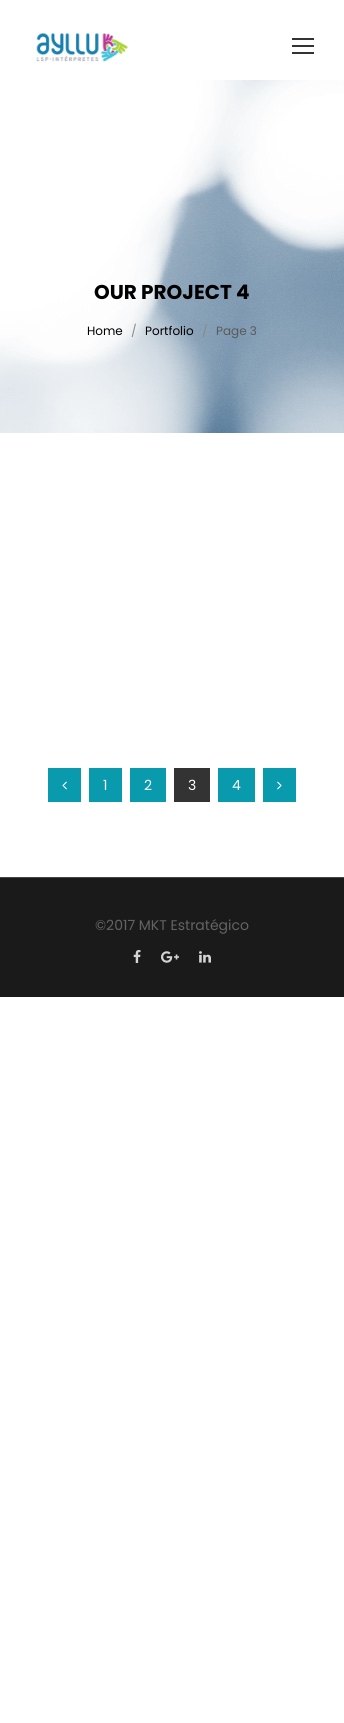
import math
import cairo



def draw_image(context, path, x, y, w, h):
    context.save()
    context.set_source_surface(cairo.ImageSurface.create_from_png(path), x, y)
    context.rectangle(x, y, w, h)
    context.fill()
    context.restore()


def draw(context):
    context.set_source_rgb(1, 1, 1)
    context.paint()
    draw_image(context, "images/1.png", 36, 33, 93, 29)
    context.set_source_rgb(51 / 255, 51 / 255, 51 / 255)
    context.rectangle(292, 38, 22, 2)
    context.fill()
    context.rectangle(292, 45, 22, 2)
    context.fill()
    context.rectangle(292, 52, 22, 2)
    context.fill()
    draw_image(context, "images/2.png", 0, 80, 344, 353)
    context.set_source_rgb(9 / 255, 154 / 255, 173 / 255)
    context.rectangle(48, 768, 33, 34)
    context.fill()
    draw_image(context, "images/3.png", 62, 781, 5, 9)
    context.rectangle(89, 768, 33, 34)
    context.fill()
    context.rectangle(130, 768, 36, 34)
    context.fill()
    context.set_source_rgb(51 / 255, 51 / 255, 51 / 255)
    context.rectangle(174, 768, 36, 34)
    context.fill()
    context.set_source_rgb(9 / 255, 154 / 255, 173 / 255)
    context.rectangle(218, 768, 37, 34)
    context.fill()
    context.rectangle(263, 768, 33, 34)
    context.fill()
    draw_image(context, "images/4.png", 277, 781, 5, 9)
    context.set_source_rgb(26 / 255, 26 / 255, 26 / 255)
    context.rectangle(0, 878, 344, 119)
    context.fill()
    context.set_source_rgb(69 / 255, 69 / 255, 69 / 255)
    context.rectangle(0, 877, 344, 1)
    context.fill()
    draw_image(context, "images/5.png", 133, 950, 8, 13)
    draw_image(context, "images/6.png", 161, 951, 18, 12)
    draw_image(context, "images/7.png", 199, 951, 12, 12)
    context.select_font_face("Poppins", cairo.FontSlant.NORMAL, cairo.FontWeight.BOLD)
    context.set_font_size(20)
    context.set_source_rgb(0, 0, 0)
    context.move_to(94, 299)
    context.show_text("OUR PROJECT 4")
    context.select_font_face("Poppins")
    context.set_font_size(12)
    context.move_to(87, 335)
    context.show_text("Home")
    context.set_source_rgb(136 / 255, 136 / 255, 136 / 255)
    context.move_to(131, 335)
    context.show_text("/")
    context.set_source_rgb(0, 0, 0)
    context.move_to(145, 335)
    context.show_text("Portfolio")
    context.set_source_rgb(136 / 255, 136 / 255, 136 / 255)
    context.move_to(202, 335)
    context.show_text("/")
    context.set_source_rgb(90 / 255, 90 / 255, 90 / 255)
    context.move_to(216, 335)
    context.show_text("Page 3")
    context.set_font_size(14)
    context.set_source_rgb(1, 1, 1)
    context.move_to(103, 790)
    context.show_text("1")
    context.move_to(144, 790)
    context.show_text("2")
    context.move_to(188, 790)
    context.show_text("3")
    context.move_to(232, 790)
    context.show_text("4")
    context.set_source_rgb(99 / 255, 99 / 255, 99 / 255)
    context.move_to(95, 930)
    context.show_text("©2017 MKT Estratégico")


surface = cairo.ImageSurface(cairo.Format.RGB24, 344, 1723)
context = cairo.Context(surface)
options = cairo.FontOptions()
options.set_hint_metrics(cairo.HintMetrics.OFF)
options.set_hint_style(cairo.HintStyle.NONE)
context.set_font_options(options)
context.set_miter_limit(4)
draw(context)
surface.write_to_png("out.png")
